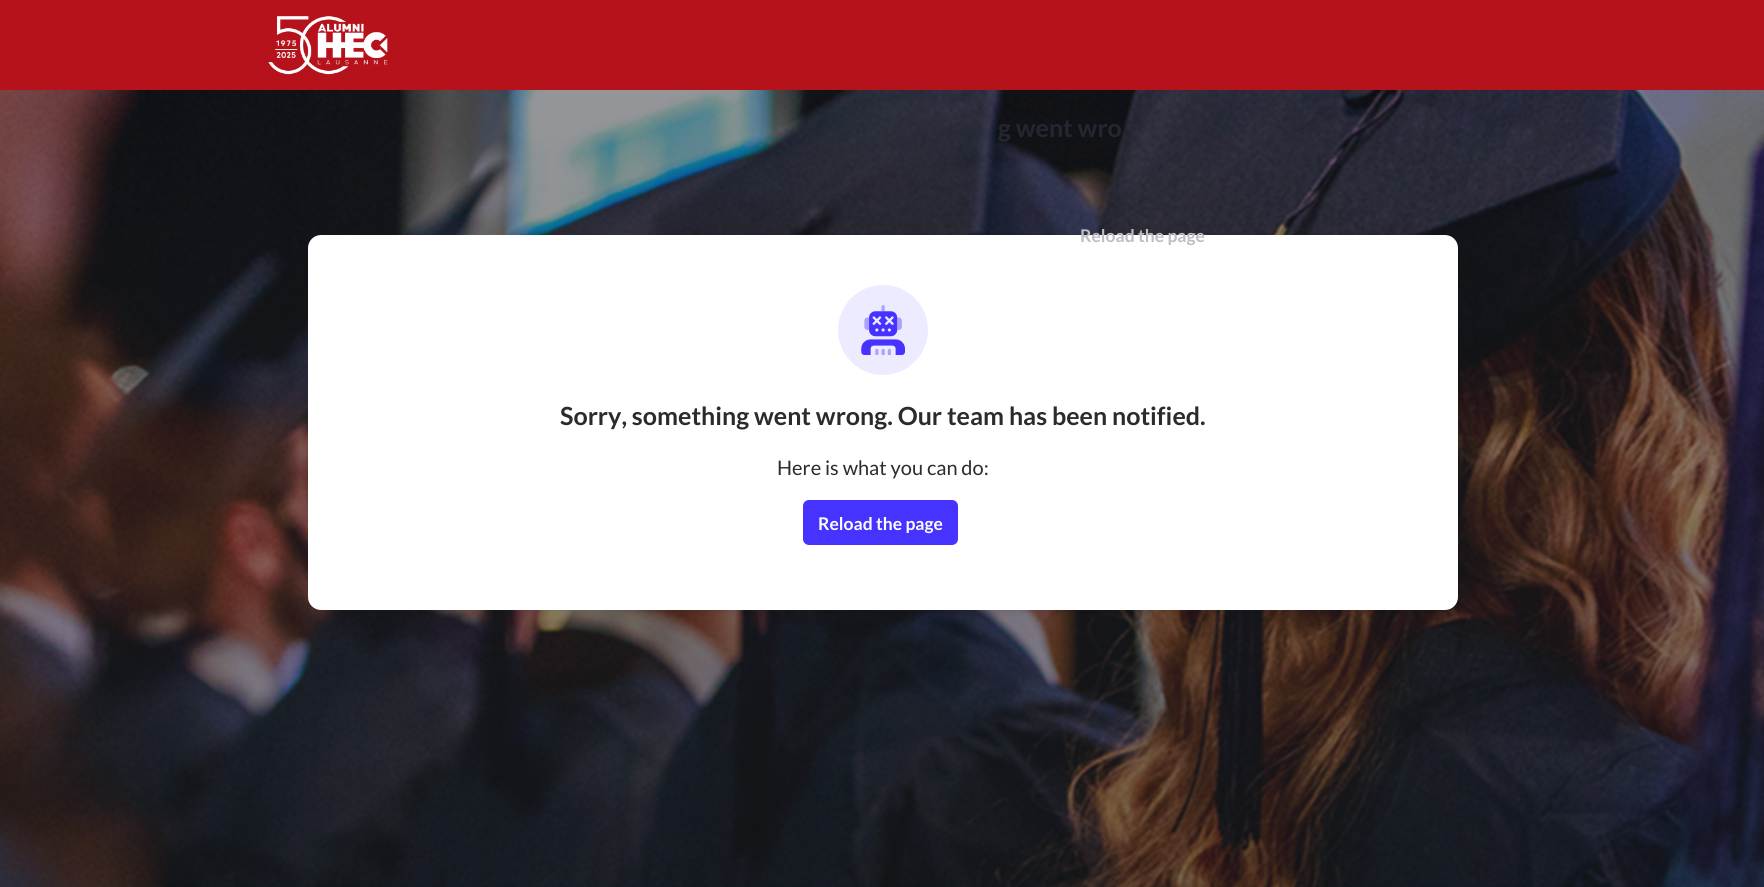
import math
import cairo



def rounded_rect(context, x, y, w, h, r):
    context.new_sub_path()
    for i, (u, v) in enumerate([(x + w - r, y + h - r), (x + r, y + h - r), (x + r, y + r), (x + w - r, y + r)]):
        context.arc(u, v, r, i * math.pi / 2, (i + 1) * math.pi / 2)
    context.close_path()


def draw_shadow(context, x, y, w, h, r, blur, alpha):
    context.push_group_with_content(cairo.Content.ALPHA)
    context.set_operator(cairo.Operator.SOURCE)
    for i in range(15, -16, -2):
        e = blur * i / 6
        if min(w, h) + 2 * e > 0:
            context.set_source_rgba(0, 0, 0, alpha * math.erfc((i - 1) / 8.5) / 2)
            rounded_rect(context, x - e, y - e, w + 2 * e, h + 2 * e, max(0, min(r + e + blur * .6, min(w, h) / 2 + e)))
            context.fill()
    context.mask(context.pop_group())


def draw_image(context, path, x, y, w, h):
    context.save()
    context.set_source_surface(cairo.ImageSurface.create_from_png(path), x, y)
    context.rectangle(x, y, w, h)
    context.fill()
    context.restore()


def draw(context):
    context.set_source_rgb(1, 1, 1)
    context.paint()
    context.set_source_rgb(181 / 255, 18 / 255, 27 / 255)
    context.rectangle(0, 0, 1764, 90)
    context.fill()
    draw_image(context, "images/1.png", 268, 16, 120, 59)
    draw_image(context, "images/2.png", 0, 90, 1764, 797)
    context.set_source_rgb(0, 0, 0)
    draw_shadow(context, 308, 236, 1150, 375, 13, 4, 0.1)
    context.set_source_rgb(1, 1, 1)
    rounded_rect(context, 308, 235, 1150, 375, 13)
    context.fill()
    context.set_source_rgb(237 / 255, 235 / 255, 1)
    context.arc(883, 330, 45, 0, 2 * math.pi)
    context.fill()
    draw_image(context, "images/3.png", 861, 305, 44, 50)
    context.set_source_rgb(71 / 255, 51 / 255, 1)
    rounded_rect(context, 803, 500, 155, 45, 6)
    context.fill()
    context.select_font_face("Lato", cairo.FontSlant.NORMAL, cairo.FontWeight.BOLD)
    context.set_font_size(25)
    context.set_source_rgb(37 / 255, 38 / 255, 50 / 255)
    context.move_to(998, 137)
    context.show_text("g went wro")
    context.set_font_size(17.5)
    context.set_source_rgb(190 / 255, 190 / 255, 194 / 255)
    context.move_to(1080, 242)
    context.show_text("Reload the page")
    context.set_font_size(25)
    context.set_source_rgb(43 / 255, 43 / 255, 43 / 255)
    context.move_to(560, 425)
    context.show_text("Sorry, something went wrong. Our team has been notified.")
    context.select_font_face("Lato")
    context.set_font_size(20)
    context.move_to(777, 475)
    context.show_text("Here is what you can do:")
    context.select_font_face("Lato", cairo.FontSlant.NORMAL, cairo.FontWeight.BOLD)
    context.set_font_size(17.5)
    context.set_source_rgb(1, 1, 1)
    context.move_to(818, 530)
    context.show_text("Reload the page")


surface = cairo.ImageSurface(cairo.Format.RGB24, 1764, 887)
context = cairo.Context(surface)
options = cairo.FontOptions()
options.set_hint_metrics(cairo.HintMetrics.OFF)
options.set_hint_style(cairo.HintStyle.NONE)
context.set_font_options(options)
context.set_miter_limit(4)
draw(context)
surface.write_to_png("out.png")
